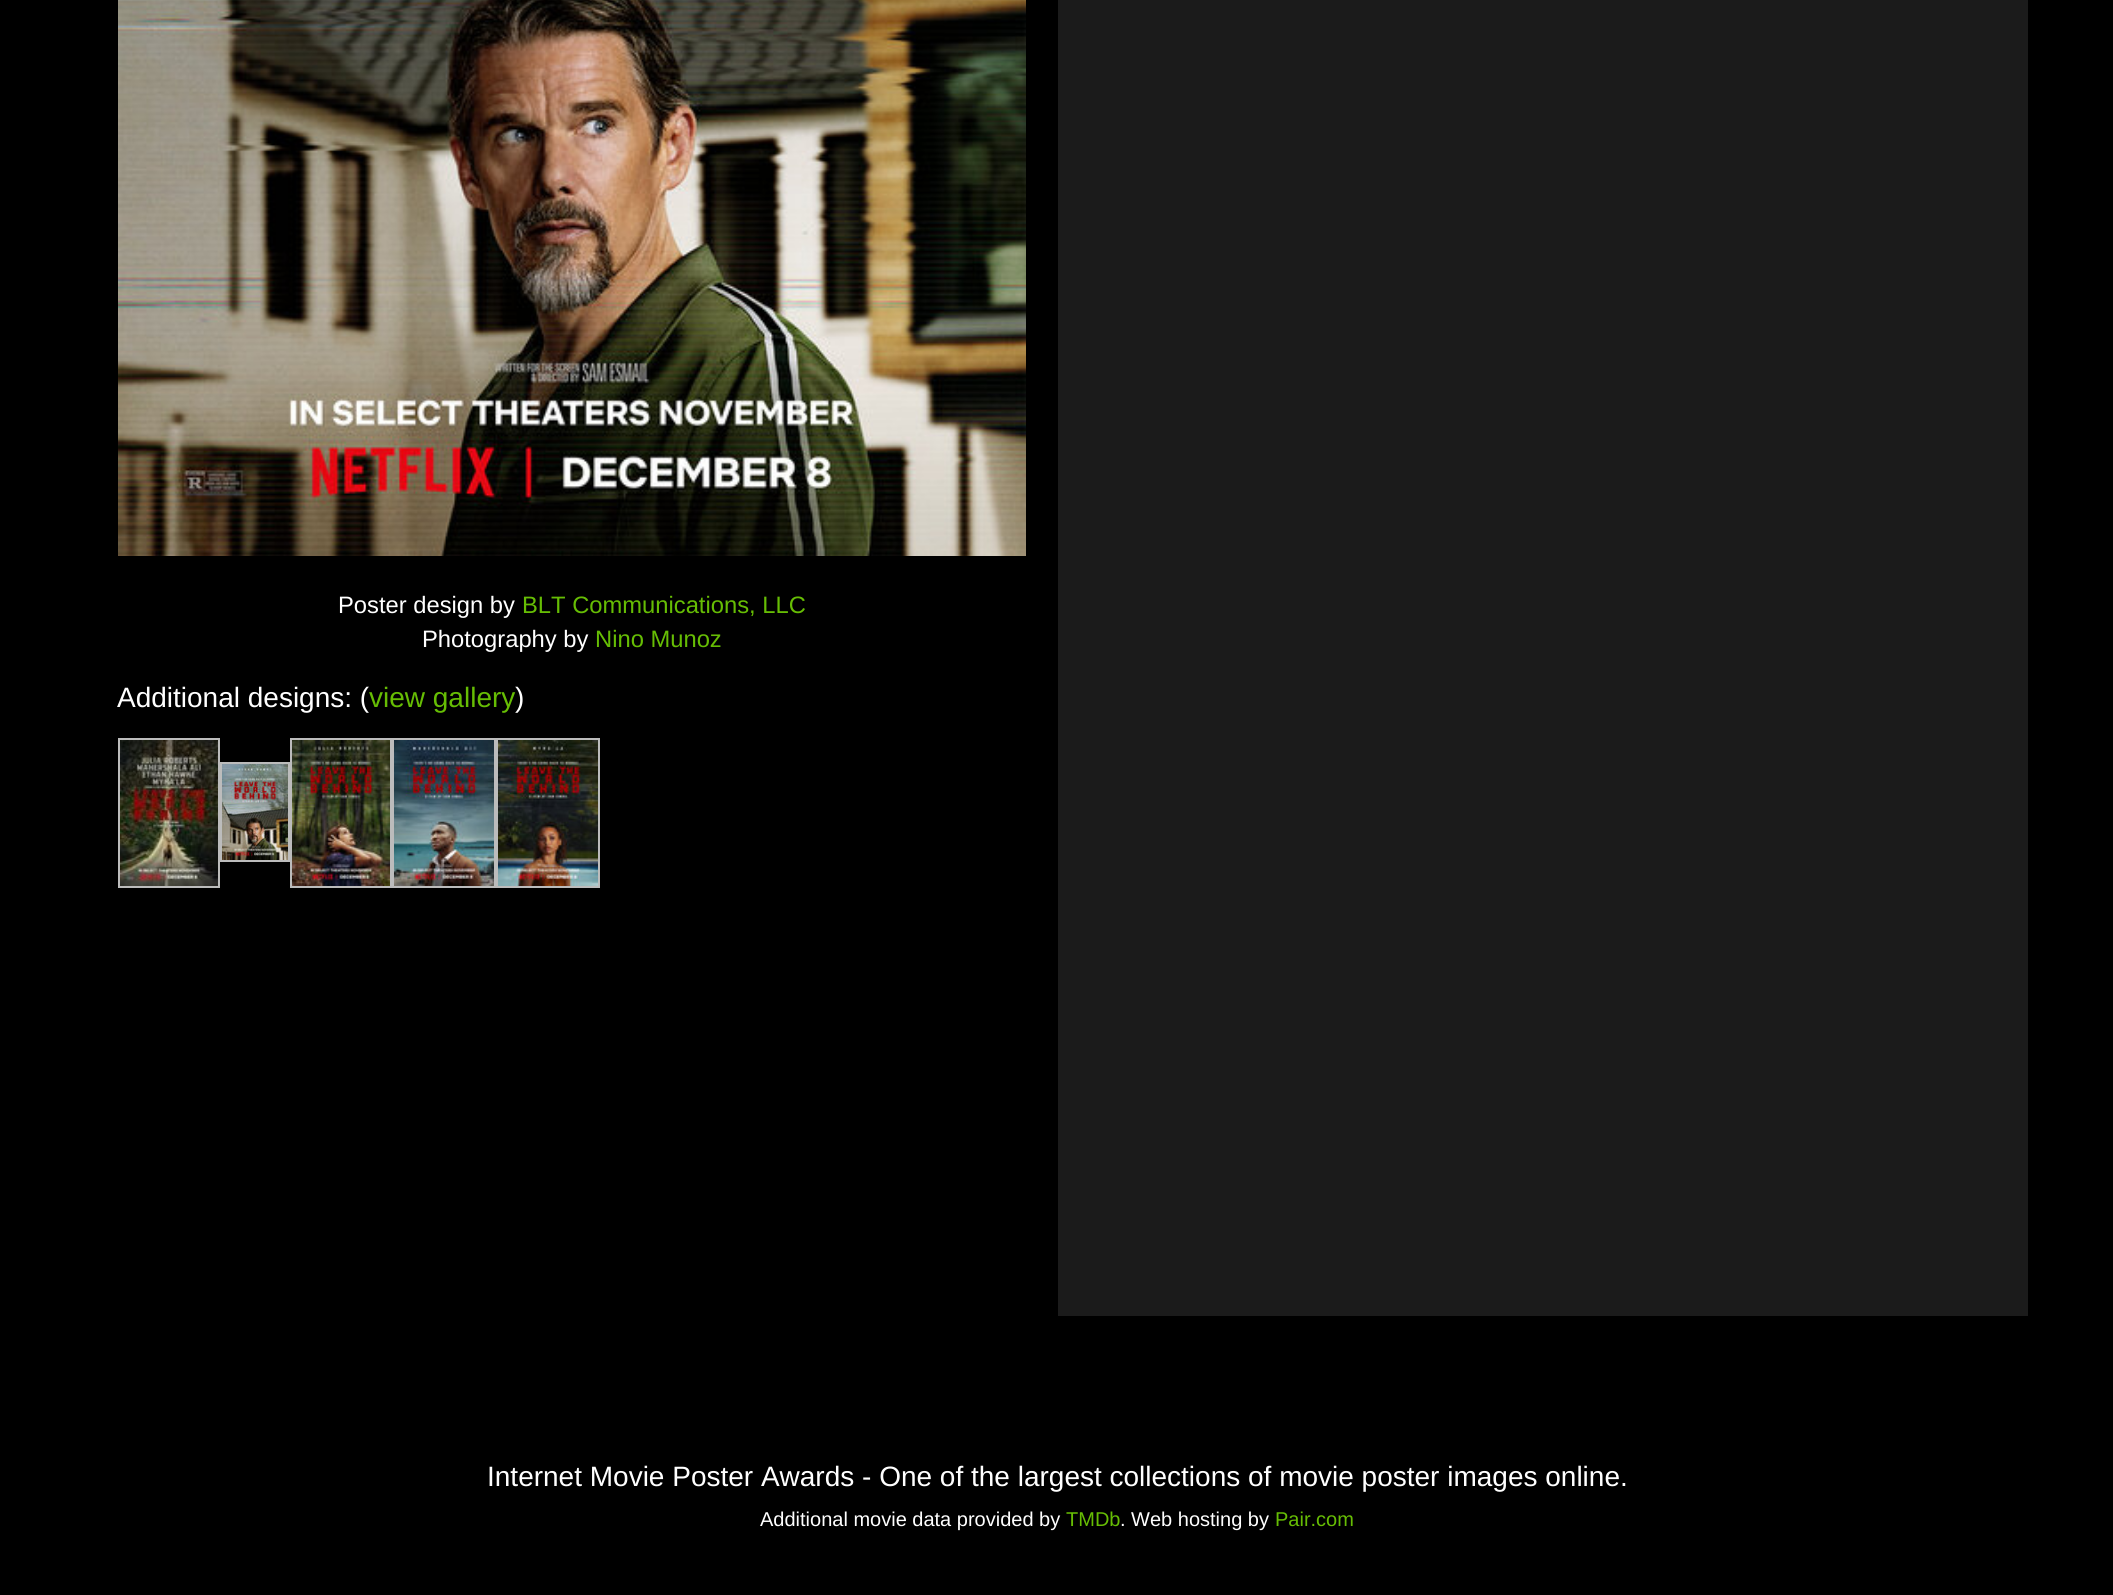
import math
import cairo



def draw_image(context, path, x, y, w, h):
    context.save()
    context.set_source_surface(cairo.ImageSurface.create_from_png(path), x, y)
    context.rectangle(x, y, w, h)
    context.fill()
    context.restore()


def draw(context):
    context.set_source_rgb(0, 0, 0)
    context.paint()
    draw_image(context, "images/1.png", 118, 0, 908, 556)
    context.rectangle(119, 739, 100, 148)
    context.set_source_rgb(188 / 255, 188 / 255, 188 / 255)
    context.stroke()
    context.rectangle(291, 739, 100, 148)
    context.stroke()
    context.rectangle(393, 739, 102, 148)
    context.stroke()
    context.rectangle(497, 739, 102, 148)
    context.stroke()
    draw_image(context, "images/2.png", 120, 740, 98, 146)
    context.rectangle(221, 763, 68, 98)
    context.stroke()
    draw_image(context, "images/3.png", 292, 740, 98, 146)
    draw_image(context, "images/4.png", 394, 740, 100, 146)
    draw_image(context, "images/5.png", 498, 740, 100, 146)
    draw_image(context, "images/6.png", 222, 764, 66, 96)
    context.set_source_rgb(27 / 255, 27 / 255, 27 / 255)
    context.rectangle(1058, 0, 970, 1316)
    context.fill()
    context.select_font_face("Liberation Sans")
    context.set_font_size(23.75)
    context.set_source_rgb(1, 1, 1)
    context.move_to(338, 613)
    context.show_text("Poster design by")
    context.set_source_rgb(102 / 255, 189 / 255, 4 / 255)
    context.move_to(522, 613)
    context.show_text("BLT Communications, LLC")
    context.set_source_rgb(1, 1, 1)
    context.move_to(422, 647)
    context.show_text("Photography by")
    context.set_source_rgb(102 / 255, 189 / 255, 4 / 255)
    context.move_to(595, 647)
    context.show_text("Nino Munoz")
    context.set_font_size(28)
    context.set_source_rgb(1, 1, 1)
    context.move_to(117, 707)
    context.show_text("Additional designs: (")
    context.set_source_rgb(102 / 255, 189 / 255, 4 / 255)
    context.move_to(369, 707)
    context.show_text("view gallery")
    context.set_source_rgb(1, 1, 1)
    context.move_to(515, 707)
    context.show_text(")")
    context.move_to(487, 1486)
    context.show_text("Internet Movie Poster Awards - One of the largest collections of movie poster images online.")
    context.set_font_size(20)
    context.move_to(760, 1526)
    context.show_text("Additional movie data provided by")
    context.set_source_rgb(102 / 255, 189 / 255, 4 / 255)
    context.move_to(1066, 1526)
    context.show_text("TMDb")
    context.set_source_rgb(1, 1, 1)
    context.move_to(1120, 1526)
    context.show_text(". Web hosting by")
    context.set_source_rgb(102 / 255, 189 / 255, 4 / 255)
    context.move_to(1275, 1526)
    context.show_text("Pair.com")


surface = cairo.ImageSurface(cairo.Format.RGB24, 2113, 1595)
context = cairo.Context(surface)
options = cairo.FontOptions()
options.set_hint_metrics(cairo.HintMetrics.OFF)
options.set_hint_style(cairo.HintStyle.NONE)
context.set_font_options(options)
context.set_miter_limit(4)
draw(context)
surface.write_to_png("out.png")
